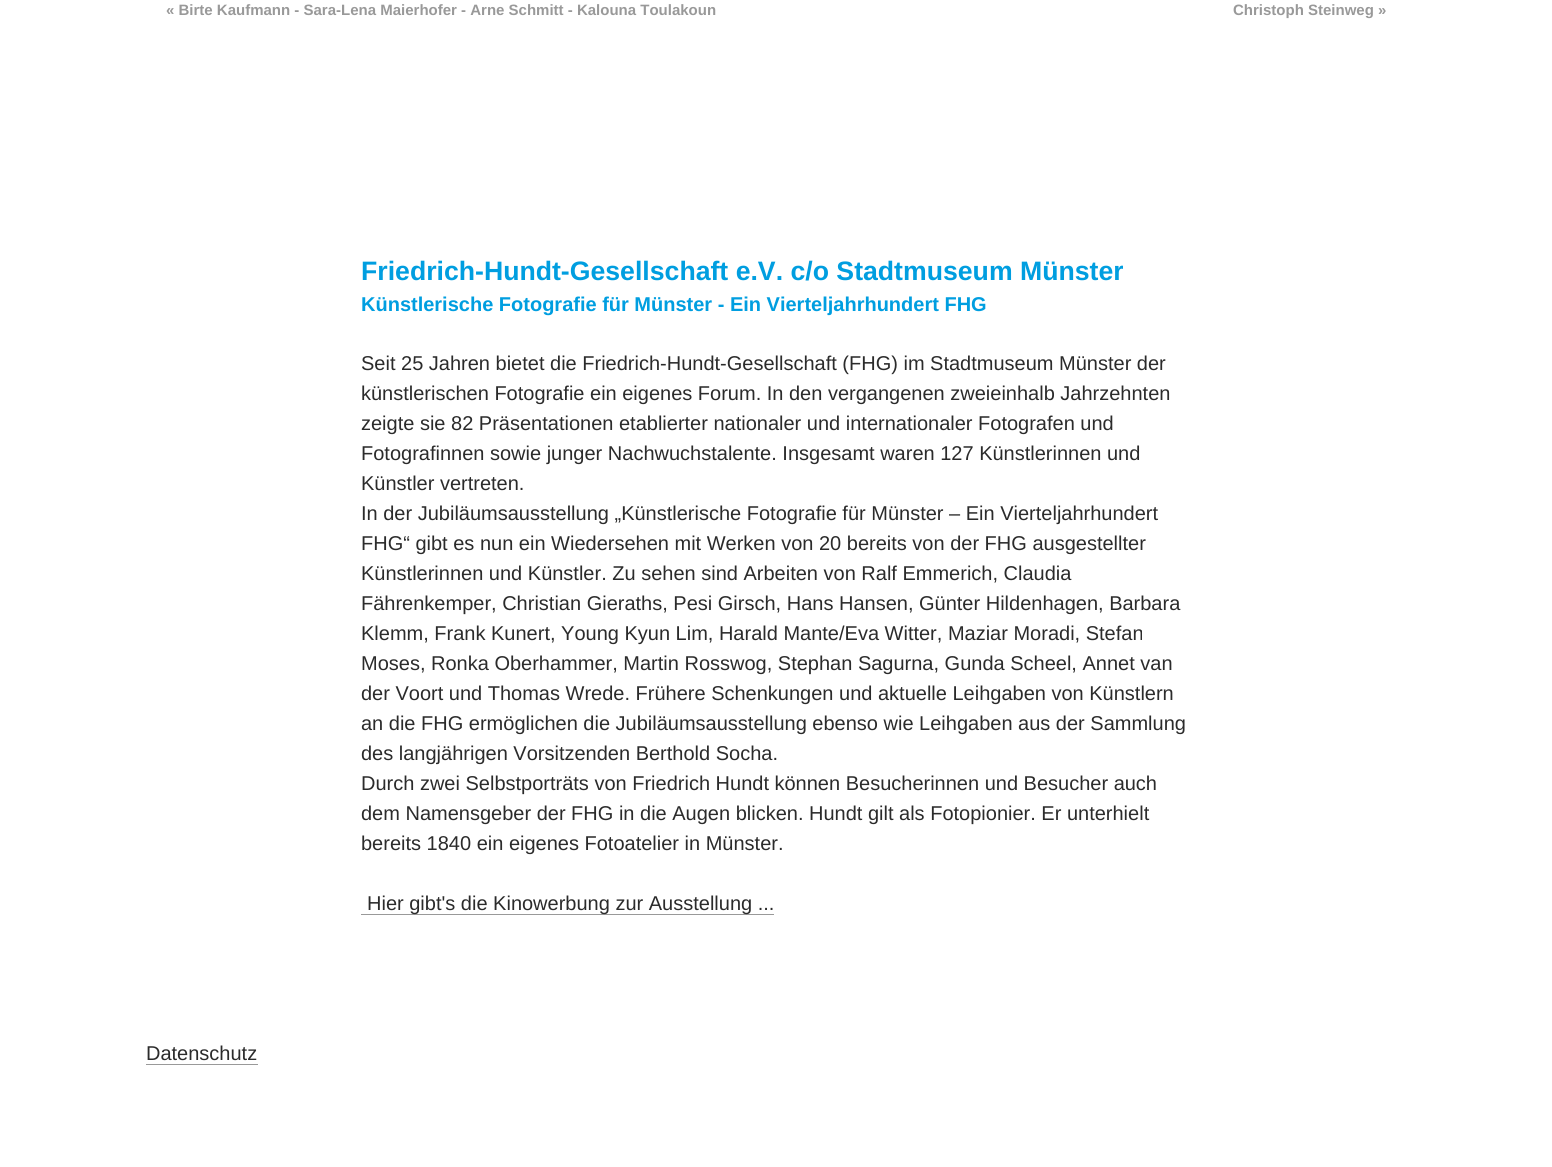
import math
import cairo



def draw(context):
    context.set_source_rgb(1, 1, 1)
    context.paint()
    context.set_source_rgb(153 / 255, 153 / 255, 153 / 255)
    context.rectangle(361, 914, 413, 1)
    context.fill()
    context.rectangle(146, 1064, 112, 1)
    context.fill()
    context.select_font_face("Liberation Sans", cairo.FontSlant.NORMAL, cairo.FontWeight.BOLD)
    context.set_font_size(15)
    context.move_to(166, 15)
    context.show_text("« Birte Kaufmann - Sara-Lena Maierhofer - Arne Schmitt - Kalouna Toulakoun")
    context.move_to(1233, 15)
    context.show_text("Christoph Steinweg »")
    context.set_font_size(26.65)
    context.set_source_rgb(0, 158 / 255, 224 / 255)
    context.move_to(361, 280)
    context.show_text("Friedrich-Hundt-Gesellschaft e.V. c/o Stadtmuseum Münster")
    context.set_font_size(20)
    context.move_to(361, 311)
    context.show_text("Künstlerische Fotografie für Münster - Ein Vierteljahrhundert FHG")
    context.select_font_face("Liberation Sans")
    context.set_source_rgb(43 / 255, 43 / 255, 43 / 255)
    context.move_to(361, 370)
    context.show_text("Seit 25 Jahren bietet die Friedrich-Hundt-Gesellschaft (FHG) im Stadtmuseum Münster der")
    context.move_to(361, 400)
    context.show_text("künstlerischen Fotografie ein eigenes Forum. In den vergangenen zweieinhalb Jahrzehnten")
    context.move_to(361, 430)
    context.show_text("zeigte sie 82 Präsentationen etablierter nationaler und internationaler Fotografen und")
    context.move_to(361, 460)
    context.show_text("Fotografinnen sowie junger Nachwuchstalente. Insgesamt waren 127 Künstlerinnen und")
    context.move_to(361, 490)
    context.show_text("Künstler vertreten.")
    context.move_to(361, 520)
    context.show_text("In der Jubiläumsausstellung „Künstlerische Fotografie für Münster – Ein Vierteljahrhundert")
    context.move_to(361, 550)
    context.show_text("FHG“ gibt es nun ein Wiedersehen mit Werken von 20 bereits von der FHG ausgestellter")
    context.move_to(361, 580)
    context.show_text("Künstlerinnen und Künstler. Zu sehen sind Arbeiten von Ralf Emmerich, Claudia")
    context.move_to(361, 610)
    context.show_text("Fährenkemper, Christian Gieraths, Pesi Girsch, Hans Hansen, Günter Hildenhagen, Barbara")
    context.move_to(361, 640)
    context.show_text("Klemm, Frank Kunert, Young Kyun Lim, Harald Mante/Eva Witter, Maziar Moradi, Stefan")
    context.move_to(361, 670)
    context.show_text("Moses, Ronka Oberhammer, Martin Rosswog, Stephan Sagurna, Gunda Scheel, Annet van")
    context.move_to(361, 700)
    context.show_text("der Voort und Thomas Wrede. Frühere Schenkungen und aktuelle Leihgaben von Künstlern")
    context.move_to(361, 730)
    context.show_text("an die FHG ermöglichen die Jubiläumsausstellung ebenso wie Leihgaben aus der Sammlung")
    context.move_to(361, 760)
    context.show_text("des langjährigen Vorsitzenden Berthold Socha.")
    context.move_to(361, 790)
    context.show_text("Durch zwei Selbstporträts von Friedrich Hundt können Besucherinnen und Besucher auch")
    context.move_to(361, 820)
    context.show_text("dem Namensgeber der FHG in die Augen blicken. Hundt gilt als Fotopionier. Er unterhielt")
    context.move_to(361, 850)
    context.show_text("bereits 1840 ein eigenes Fotoatelier in Münster.")
    context.move_to(367, 910)
    context.show_text("Hier gibt's die Kinowerbung zur Ausstellung ...")
    context.move_to(146, 1060)
    context.show_text("Datenschutz")


surface = cairo.ImageSurface(cairo.Format.RGB24, 1552, 1167)
context = cairo.Context(surface)
options = cairo.FontOptions()
options.set_hint_metrics(cairo.HintMetrics.OFF)
options.set_hint_style(cairo.HintStyle.NONE)
context.set_font_options(options)
context.set_miter_limit(4)
draw(context)
surface.write_to_png("out.png")
